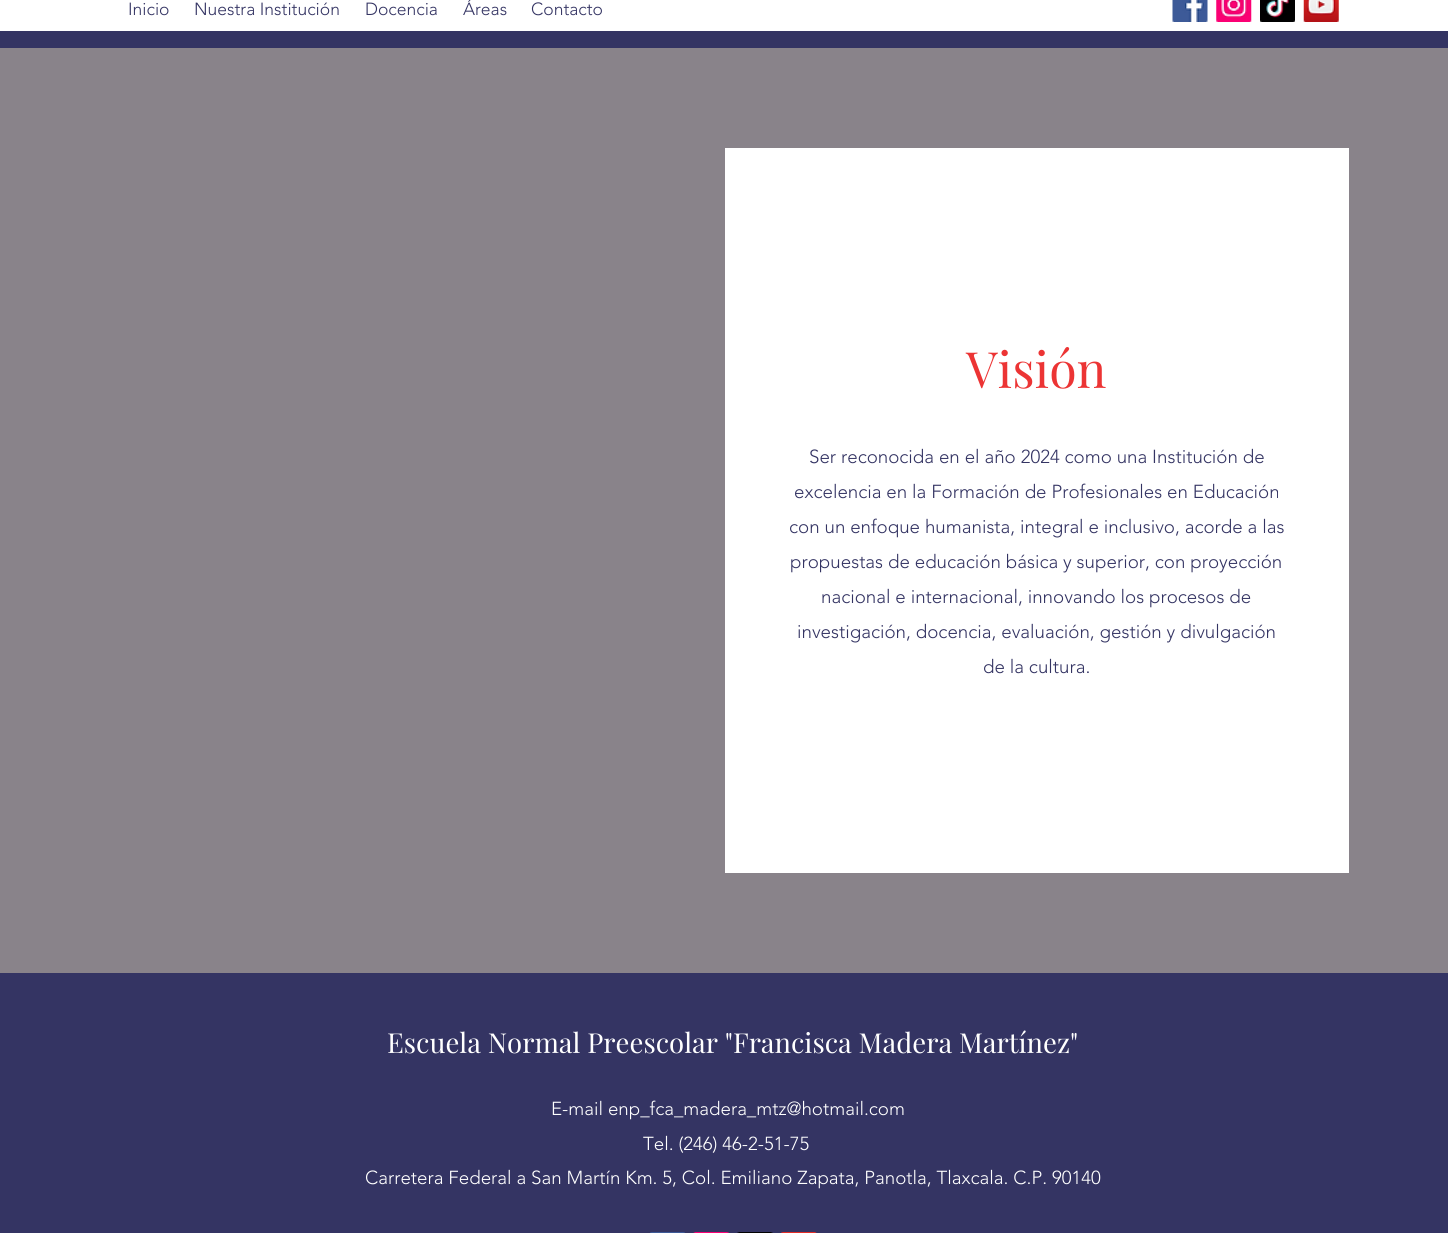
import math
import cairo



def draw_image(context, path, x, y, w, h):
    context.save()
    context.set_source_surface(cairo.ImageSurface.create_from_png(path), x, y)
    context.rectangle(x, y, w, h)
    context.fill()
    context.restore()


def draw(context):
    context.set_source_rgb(137 / 255, 131 / 255, 138 / 255)
    context.paint()
    context.set_source_rgb(1, 1, 1)
    context.rectangle(0, 0, 1448, 31)
    context.fill()
    draw_image(context, "images/1.png", 1172, 0, 36, 22)
    draw_image(context, "images/2.png", 1216, 0, 36, 22)
    draw_image(context, "images/3.png", 1260, 0, 35, 22)
    draw_image(context, "images/4.png", 1303, 0, 36, 22)
    context.set_source_rgb(52 / 255, 52 / 255, 99 / 255)
    context.rectangle(0, 31, 1448, 17)
    context.fill()
    context.set_source_rgb(1, 1, 1)
    context.rectangle(725, 148, 624, 725)
    context.fill()
    context.set_source_rgb(52 / 255, 52 / 255, 99 / 255)
    context.rectangle(0, 973, 1448, 260)
    context.fill()
    draw_image(context, "images/5.png", 650, 1232, 35, 1)
    draw_image(context, "images/6.png", 693, 1232, 36, 1)
    draw_image(context, "images/7.png", 737, 1232, 36, 1)
    draw_image(context, "images/8.png", 781, 1232, 36, 1)
    context.select_font_face("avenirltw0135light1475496 Light")
    context.set_font_size(17.5)
    context.move_to(128, 15)
    context.show_text("Inicio")
    context.move_to(194, 15)
    context.show_text("Nuestra Institución")
    context.move_to(365, 15)
    context.show_text("Docencia")
    context.move_to(463, 15)
    context.show_text("Áreas")
    context.move_to(531, 15)
    context.show_text("Contacto")
    context.select_font_face("Playfair Display")
    context.set_font_size(50)
    context.set_source_rgb(236 / 255, 52 / 255, 52 / 255)
    context.move_to(966, 388)
    context.show_text("Visión")
    context.select_font_face("avenirltw0135light1475496 Light")
    context.set_font_size(18.75)
    context.set_source_rgb(52 / 255, 52 / 255, 99 / 255)
    context.move_to(809, 463)
    context.show_text("Ser reconocida en el año 2024 como una Institución de")
    context.move_to(794, 498)
    context.show_text("excelencia en la Formación de Profesionales en Educación")
    context.move_to(789, 533)
    context.show_text("con un enfoque humanista, integral e inclusivo, acorde a las")
    context.move_to(790, 568)
    context.show_text("propuestas de educación básica y superior, con proyección")
    context.move_to(821, 603)
    context.show_text("nacional e internacional, innovando los procesos de")
    context.move_to(797, 638)
    context.show_text("investigación, docencia, evaluación, gestión y divulgación")
    context.move_to(983, 673)
    context.show_text("de la cultura.")
    context.select_font_face("Playfair Display")
    context.set_font_size(27.5)
    context.set_source_rgb(1, 1, 1)
    context.move_to(387, 1053)
    context.show_text("Escuela Normal Preescolar \"Francisca Madera Martínez\"")
    context.select_font_face("avenirltw0135light1475496 Light")
    context.set_font_size(18.75)
    context.move_to(551, 1115)
    context.show_text("E-mail enp_fca_madera_mtz@hotmail.com")
    context.move_to(643, 1150)
    context.show_text("Tel. (246) 46-2-51-75")
    context.move_to(365, 1184)
    context.show_text("Carretera Federal a San Martín Km. 5, Col. Emiliano Zapata, Panotla, Tlaxcala. C.P. 90140")


surface = cairo.ImageSurface(cairo.Format.RGB24, 1448, 1233)
context = cairo.Context(surface)
options = cairo.FontOptions()
options.set_hint_metrics(cairo.HintMetrics.OFF)
options.set_hint_style(cairo.HintStyle.NONE)
context.set_font_options(options)
context.set_miter_limit(4)
draw(context)
surface.write_to_png("out.png")
